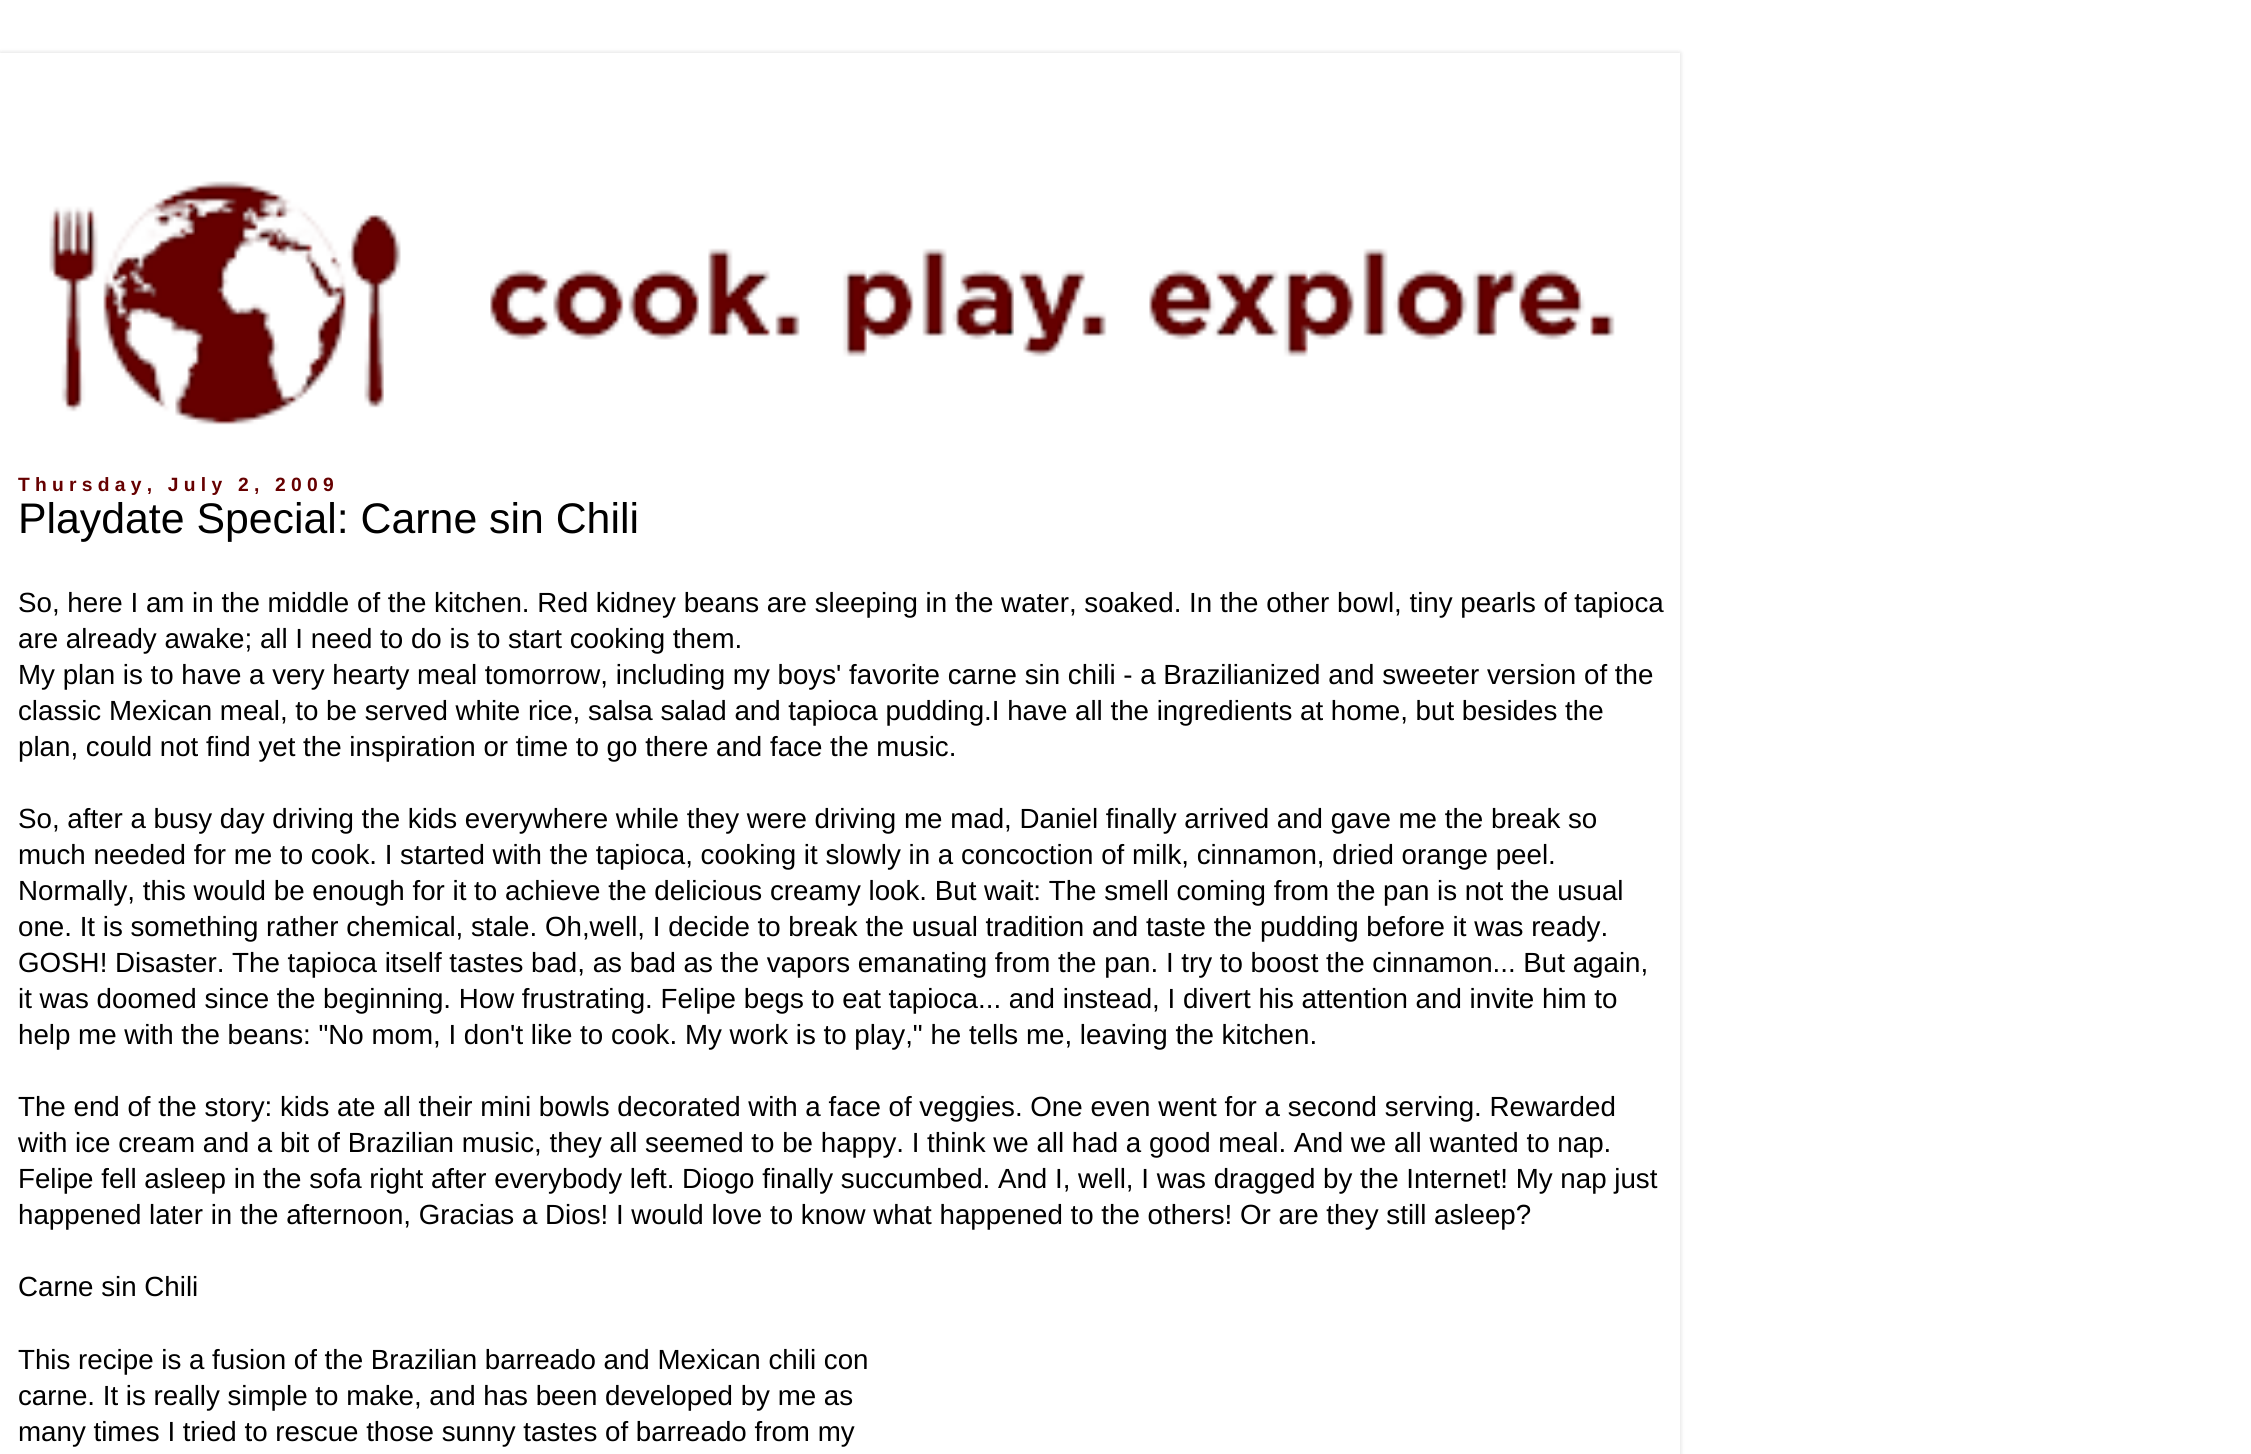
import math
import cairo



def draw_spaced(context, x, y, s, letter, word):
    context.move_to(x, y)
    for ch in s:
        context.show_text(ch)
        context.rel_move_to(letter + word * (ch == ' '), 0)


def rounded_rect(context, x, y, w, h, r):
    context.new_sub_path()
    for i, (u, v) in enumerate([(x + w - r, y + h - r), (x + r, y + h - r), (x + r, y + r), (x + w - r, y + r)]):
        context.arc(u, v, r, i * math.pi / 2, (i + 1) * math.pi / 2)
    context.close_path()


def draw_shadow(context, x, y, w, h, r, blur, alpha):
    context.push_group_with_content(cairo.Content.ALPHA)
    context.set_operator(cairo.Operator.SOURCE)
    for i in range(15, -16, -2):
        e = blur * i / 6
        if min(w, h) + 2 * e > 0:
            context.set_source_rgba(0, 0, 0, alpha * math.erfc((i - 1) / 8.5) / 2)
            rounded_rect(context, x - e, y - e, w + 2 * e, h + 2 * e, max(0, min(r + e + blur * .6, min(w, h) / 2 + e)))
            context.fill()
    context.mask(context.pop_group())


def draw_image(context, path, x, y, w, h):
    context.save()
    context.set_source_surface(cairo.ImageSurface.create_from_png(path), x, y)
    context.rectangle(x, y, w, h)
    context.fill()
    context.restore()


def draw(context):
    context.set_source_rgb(1, 1, 1)
    context.paint()
    context.save()
    context.set_fill_rule(cairo.FillRule.EVEN_ODD)
    context.new_path()
    context.move_to(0, 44)
    context.line_to(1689, 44)
    context.line_to(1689, 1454)
    context.line_to(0, 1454)
    context.close_path()
    context.move_to(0, 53)
    context.line_to(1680, 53)
    context.line_to(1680, 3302)
    context.line_to(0, 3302)
    context.close_path()
    context.clip()
    context.set_source_rgb(0, 0, 0)
    draw_shadow(context, 0, 53, 1680, 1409, 0, 2.5, 0.15)
    context.restore()
    draw_image(context, "images/1.png", 49, 181, 1566, 244)
    context.select_font_face("Liberation Sans", cairo.FontSlant.NORMAL, cairo.FontWeight.BOLD)
    context.set_font_size(19.25)
    context.set_source_rgb(102 / 255, 0, 0)
    draw_spaced(context, 18, 491, "Thursday, July 2, 2009", 5.25, 0)
    context.select_font_face("Liberation Sans")
    context.set_font_size(42.8)
    context.set_source_rgb(0, 0, 0)
    context.move_to(18, 533)
    context.show_text("Playdate Special: Carne sin Chili")
    context.set_font_size(27.72)
    context.move_to(18, 612)
    context.show_text("So, here I am in the middle of the kitchen. Red kidney beans are sleeping in the water, soaked. In the other bowl, tiny pearls of tapioca")
    context.move_to(18, 648)
    context.show_text("are already awake; all I need to do is to start cooking them.")
    context.move_to(18, 684)
    context.show_text("My plan is to have a very hearty meal tomorrow, including my boys' favorite carne sin chili - a Brazilianized and sweeter version of the")
    context.move_to(18, 720)
    context.show_text("classic Mexican meal, to be served white rice, salsa salad and tapioca pudding.I have all the ingredients at home, but besides the")
    context.move_to(18, 756)
    context.show_text("plan, could not find yet the inspiration or time to go there and face the music.")
    context.move_to(18, 828)
    context.show_text("So, after a busy day driving the kids everywhere while they were driving me mad, Daniel finally arrived and gave me the break so")
    context.move_to(18, 864)
    context.show_text("much needed for me to cook. I started with the tapioca, cooking it slowly in a concoction of milk, cinnamon, dried orange peel.")
    context.move_to(18, 900)
    context.show_text("Normally, this would be enough for it to achieve the delicious creamy look. But wait: The smell coming from the pan is not the usual")
    context.move_to(18, 936)
    context.show_text("one. It is something rather chemical, stale. Oh,well, I decide to break the usual tradition and taste the pudding before it was ready.")
    context.move_to(18, 972)
    context.show_text("GOSH! Disaster. The tapioca itself tastes bad, as bad as the vapors emanating from the pan. I try to boost the cinnamon... But again,")
    context.move_to(18, 1008)
    context.show_text("it was doomed since the beginning. How frustrating. Felipe begs to eat tapioca... and instead, I divert his attention and invite him to")
    context.move_to(18, 1044)
    context.show_text("help me with the beans: \"No mom, I don't like to cook. My work is to play,\" he tells me, leaving the kitchen.")
    context.move_to(18, 1116)
    context.show_text("The end of the story: kids ate all their mini bowls decorated with a face of veggies. One even went for a second serving. Rewarded")
    context.move_to(18, 1152)
    context.show_text("with ice cream and a bit of Brazilian music, they all seemed to be happy. I think we all had a good meal. And we all wanted to nap.")
    context.move_to(18, 1188)
    context.show_text("Felipe fell asleep in the sofa right after everybody left. Diogo finally succumbed. And I, well, I was dragged by the Internet! My nap just")
    context.move_to(18, 1224)
    context.show_text("happened later in the afternoon, Gracias a Dios! I would love to know what happened to the others! Or are they still asleep?")
    context.move_to(18, 1296)
    context.show_text("Carne sin Chili")
    context.move_to(18, 1369)
    context.show_text("This recipe is a fusion of the Brazilian barreado and Mexican chili con")
    context.move_to(18, 1405)
    context.show_text("carne. It is really simple to make, and has been developed by me as")
    context.move_to(18, 1441)
    context.show_text("many times I tried to rescue those sunny tastes of barreado from my")


surface = cairo.ImageSurface(cairo.Format.RGB24, 2251, 1454)
context = cairo.Context(surface)
options = cairo.FontOptions()
options.set_hint_metrics(cairo.HintMetrics.OFF)
options.set_hint_style(cairo.HintStyle.NONE)
context.set_font_options(options)
context.set_miter_limit(4)
draw(context)
surface.write_to_png("out.png")
